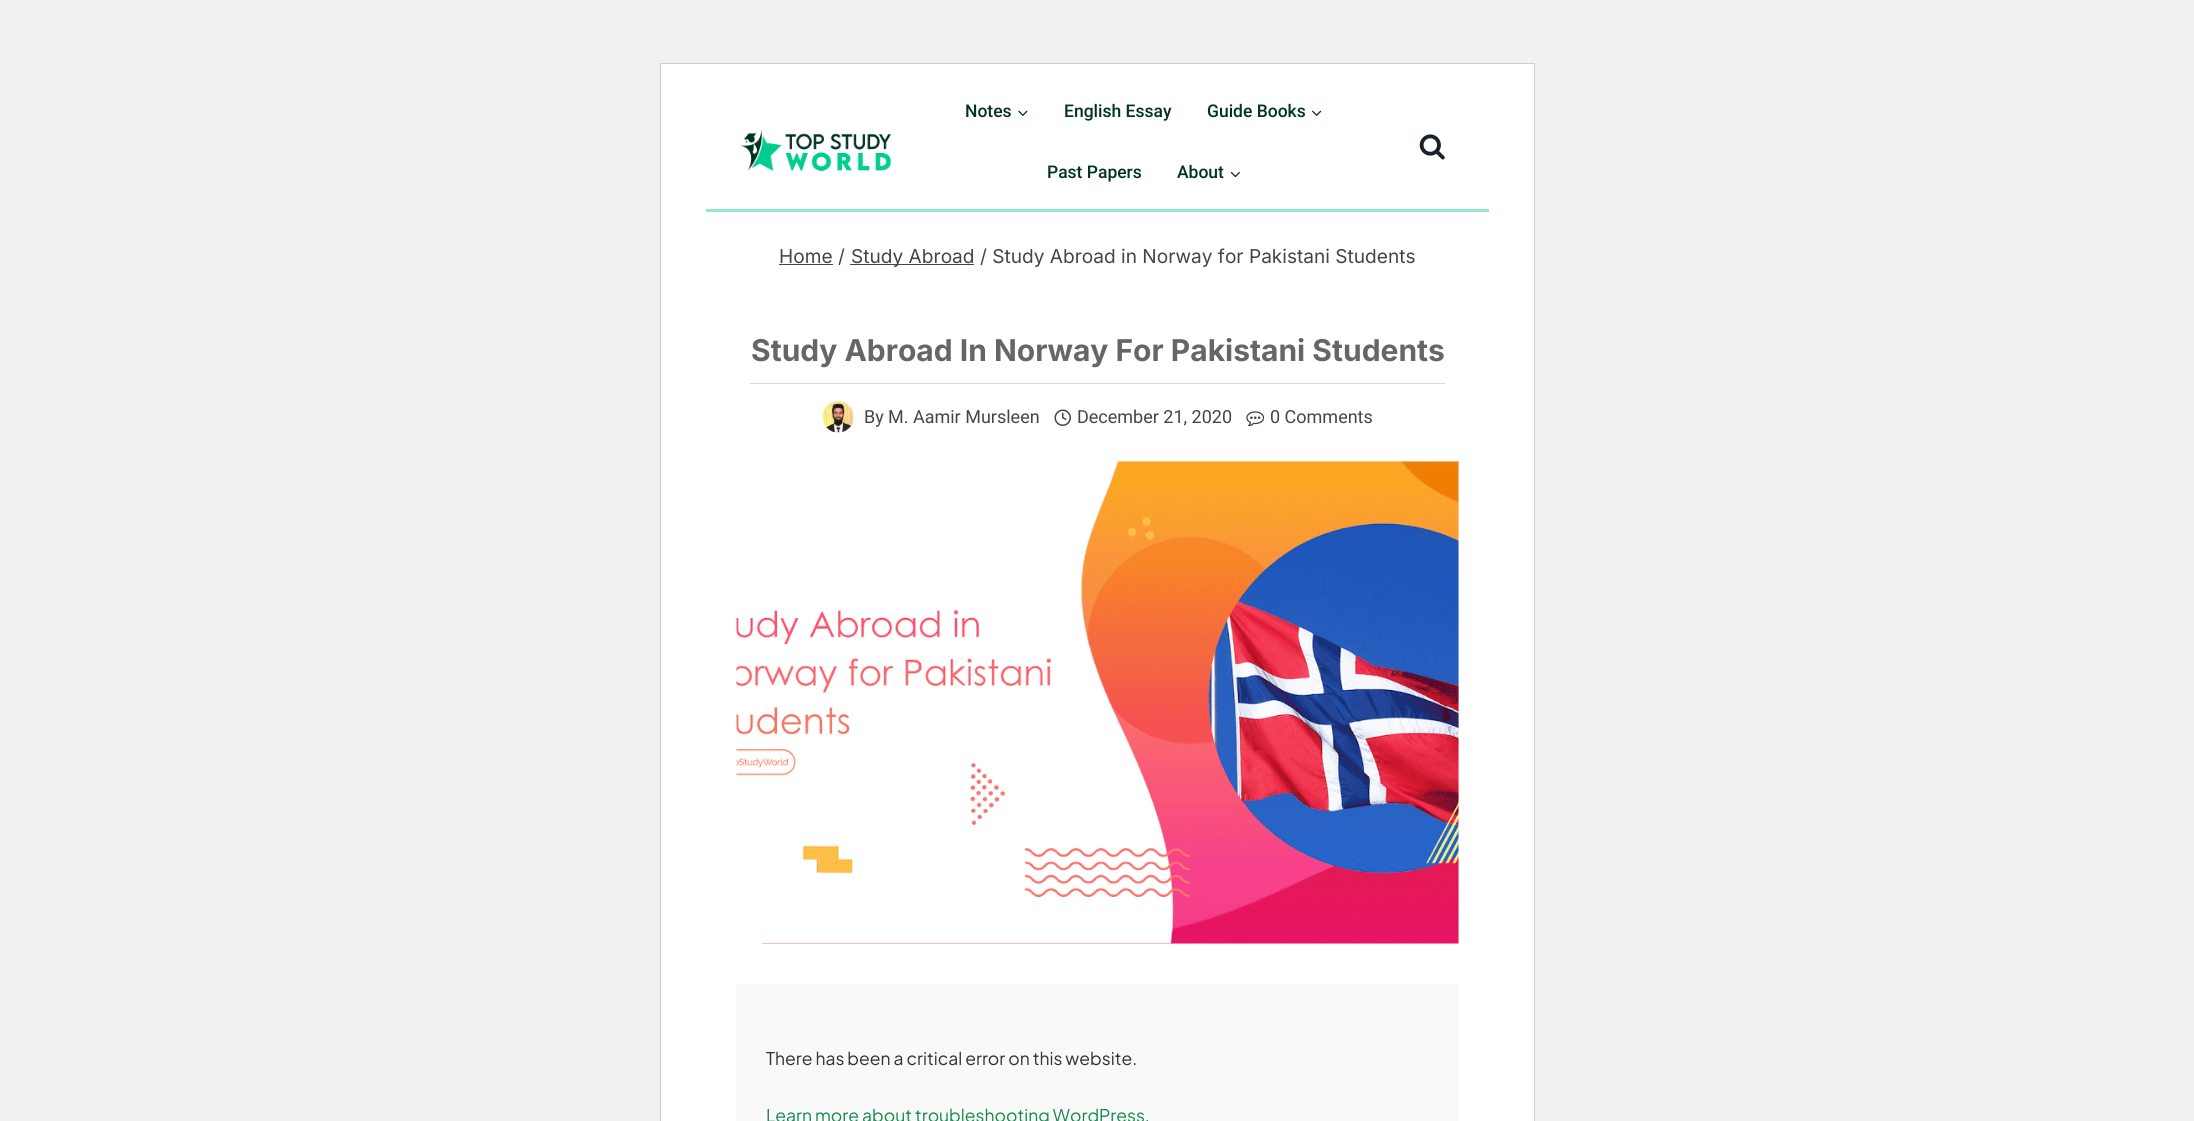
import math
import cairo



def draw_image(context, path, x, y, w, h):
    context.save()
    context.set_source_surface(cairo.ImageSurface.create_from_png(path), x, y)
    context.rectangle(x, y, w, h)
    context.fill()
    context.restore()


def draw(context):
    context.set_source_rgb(241 / 255, 241 / 255, 241 / 255)
    context.paint()
    context.set_source_rgb(1, 1, 1)
    context.rectangle(660.5, 63.5, 874, 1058)
    context.fill_preserve()
    context.set_source_rgb(204 / 255, 208 / 255, 212 / 255)
    context.set_line_width(1)
    context.stroke()
    context.set_source_rgb(143 / 255, 233 / 255, 206 / 255)
    context.rectangle(706, 209, 783, 3)
    context.fill()
    draw_image(context, "images/1.png", 740, 129, 152, 42)
    draw_image(context, "images/2.png", 1018, 110, 10, 6)
    draw_image(context, "images/3.png", 1312, 110, 10, 6)
    draw_image(context, "images/4.png", 1230, 172, 10, 6)
    draw_image(context, "images/5.png", 1419, 134, 26, 26)
    context.set_source_rgb(69 / 255, 69 / 255, 69 / 255)
    context.rectangle(779, 264, 54, 1)
    context.fill()
    context.rectangle(850, 264, 124, 1)
    context.fill()
    context.set_source_rgb(218 / 255, 218 / 255, 218 / 255)
    context.rectangle(750, 383, 695, 1)
    context.fill()
    draw_image(context, "images/6.png", 822, 401, 32, 32)
    draw_image(context, "images/7.png", 1054, 409, 17, 17)
    draw_image(context, "images/8.png", 1246, 411, 18, 15)
    draw_image(context, "images/9.png", 736, 461, 723, 483)
    context.set_source_rgb(249 / 255, 249 / 255, 249 / 255)
    context.rectangle(736, 984, 723, 137)
    context.fill()
    context.select_font_face("Roboto Medium")
    context.set_font_size(17.5)
    context.set_source_rgb(1 / 255, 50 / 255, 34 / 255)
    context.move_to(965, 117)
    context.show_text("Notes")
    context.move_to(1064, 117)
    context.show_text("English Essay")
    context.move_to(1207, 117)
    context.show_text("Guide Books")
    context.move_to(1047, 178)
    context.show_text("Past Papers")
    context.move_to(1177, 178)
    context.show_text("About")
    context.select_font_face("Inter")
    context.set_font_size(19.1)
    context.set_source_rgb(69 / 255, 69 / 255, 69 / 255)
    context.move_to(779, 263)
    context.show_text("Home /")
    context.move_to(851, 263)
    context.show_text("Study Abroad / Study Abroad in Norway for Pakistani Students")
    context.select_font_face("Inter", cairo.FontSlant.NORMAL, cairo.FontWeight.BOLD)
    context.set_font_size(30)
    context.set_source_rgb(102 / 255, 102 / 255, 102 / 255)
    context.move_to(751, 361)
    context.show_text("Study Abroad In Norway For Pakistani Students")
    context.select_font_face("Roboto")
    context.set_font_size(18)
    context.set_source_rgb(69 / 255, 69 / 255, 69 / 255)
    context.move_to(864, 423)
    context.show_text("By")
    context.move_to(888, 423)
    context.show_text("M. Aamir Mursleen")
    context.move_to(1077, 423)
    context.show_text("December 21, 2020")
    context.move_to(1270, 423)
    context.show_text("0 Comments")
    context.select_font_face("Plus Jakarta Sans")
    context.set_font_size(17.5)
    context.set_source_rgb(44 / 255, 51 / 255, 56 / 255)
    context.move_to(766, 1065)
    context.show_text("There has been a critical error on this website.")
    context.set_source_rgb(18 / 255, 138 / 255, 80 / 255)
    context.move_to(766, 1122)
    context.show_text("Learn more about troubleshooting WordPress.")


surface = cairo.ImageSurface(cairo.Format.RGB24, 2194, 1121)
context = cairo.Context(surface)
options = cairo.FontOptions()
options.set_hint_metrics(cairo.HintMetrics.OFF)
options.set_hint_style(cairo.HintStyle.NONE)
context.set_font_options(options)
context.set_miter_limit(4)
draw(context)
surface.write_to_png("out.png")
